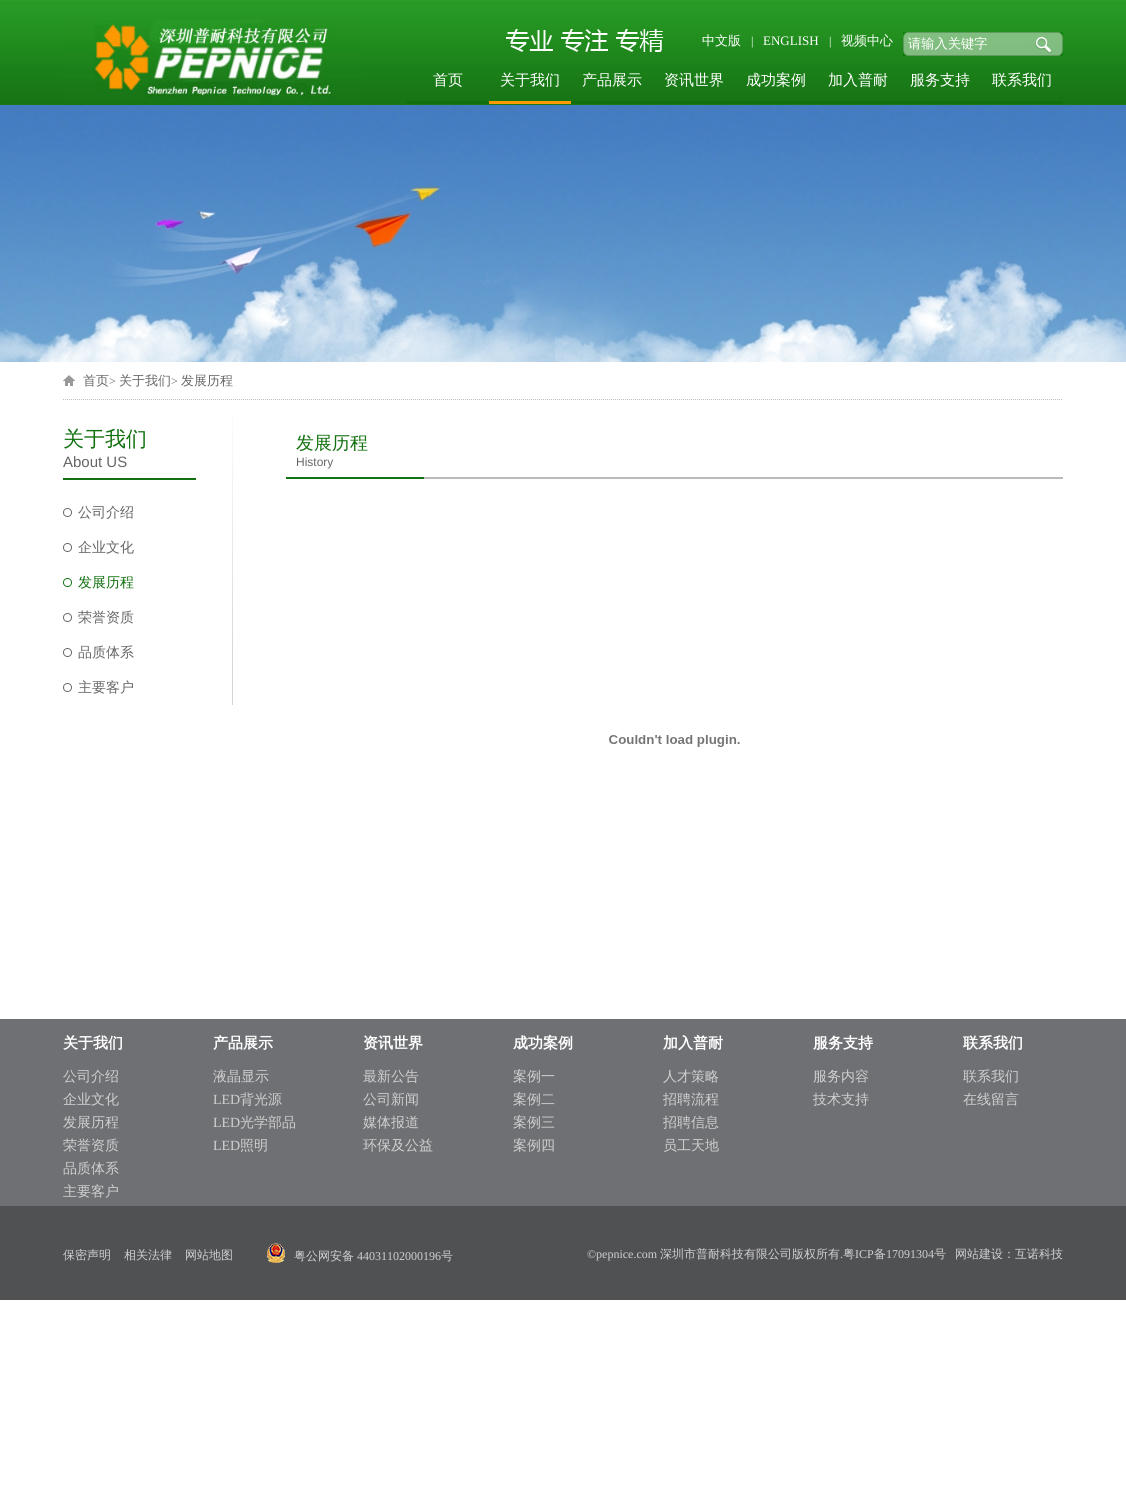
import math
import cairo



def draw_image(context, path, x, y, w, h):
    context.save()
    context.set_source_surface(cairo.ImageSurface.create_from_png(path), x, y)
    context.rectangle(x, y, w, h)
    context.fill()
    context.restore()


def draw(context):
    context.set_source_rgb(1, 1, 1)
    context.paint()
    draw_image(context, "images/1.png", 0, 0, 1126, 105)
    draw_image(context, "images/2.png", 506, 29, 158, 23)
    draw_image(context, "images/3.png", 63, 20, 298, 85)
    draw_image(context, "images/4.png", 903, 32, 128, 24)
    draw_image(context, "images/5.png", 1031, 32, 32, 24)
    context.set_source_rgb(17 / 255, 112 / 255, 14 / 255)
    context.rectangle(407, 101, 82, 3)
    context.fill()
    context.set_source_rgb(1, 153 / 255, 0)
    context.rectangle(489, 101, 82, 3)
    context.fill()
    context.set_source_rgb(17 / 255, 112 / 255, 14 / 255)
    context.rectangle(571, 101, 492, 3)
    context.fill()
    draw_image(context, "images/6.png", 0, 105, 1126, 257)
    draw_image(context, "images/7.png", 63, 375, 12, 11)
    context.new_path()
    context.move_to(63, 399.5)
    context.line_to(1063, 399.5)
    context.set_source_rgb(190 / 255, 190 / 255, 190 / 255)
    context.set_line_width(1)
    context.set_dash([1, 1])
    context.stroke()
    draw_image(context, "images/8.png", 232, 416, 1, 289)
    context.set_source_rgb(17 / 255, 113 / 255, 15 / 255)
    context.rectangle(63, 478, 133, 2)
    context.fill()
    draw_image(context, "images/9.png", 63, 508, 9, 9)
    draw_image(context, "images/9.png", 63, 543, 9, 9)
    draw_image(context, "images/10.png", 63, 578, 9, 9)
    draw_image(context, "images/9.png", 63, 613, 9, 9)
    draw_image(context, "images/9.png", 63, 648, 9, 9)
    draw_image(context, "images/9.png", 63, 683, 9, 9)
    draw_image(context, "images/11.png", 286, 477, 777, 2)
    draw_image(context, "images/12.png", 609, 735, 131, 12)
    context.set_source_rgb(111 / 255, 112 / 255, 116 / 255)
    context.rectangle(0, 1019, 1126, 187)
    context.fill()
    context.set_source_rgb(80 / 255, 81 / 255, 83 / 255)
    context.rectangle(0, 1206, 1126, 94)
    context.fill()
    draw_image(context, "images/13.png", 267, 1243, 18, 20)
    context.select_font_face("WenQuanYi Zen Hei Medium")
    context.set_font_size(13)
    context.set_source_rgb(1, 1, 1)
    context.move_to(702, 45)
    context.show_text("中文版")
    context.select_font_face("Liberation Serif")
    context.set_font_size(12)
    context.move_to(751, 45)
    context.show_text("|")
    context.set_font_size(13)
    context.move_to(763, 45)
    context.show_text("ENGLISH")
    context.set_font_size(12)
    context.move_to(829, 45)
    context.show_text("|")
    context.select_font_face("WenQuanYi Zen Hei Medium")
    context.set_font_size(13)
    context.move_to(841, 45)
    context.show_text("视频中心")
    context.set_font_size(13.25)
    context.move_to(908, 48)
    context.show_text("请输入关键字")
    context.set_font_size(15)
    context.move_to(433, 85)
    context.show_text("首页")
    context.move_to(500, 85)
    context.show_text("关于我们")
    context.move_to(582, 85)
    context.show_text("产品展示")
    context.move_to(664, 85)
    context.show_text("资讯世界")
    context.move_to(746, 85)
    context.show_text("成功案例")
    context.move_to(828, 85)
    context.show_text("加入普耐")
    context.move_to(910, 85)
    context.show_text("服务支持")
    context.move_to(992, 85)
    context.show_text("联系我们")
    context.set_font_size(13)
    context.set_source_rgb(102 / 255, 102 / 255, 102 / 255)
    context.move_to(83, 385)
    context.show_text("首页")
    context.select_font_face("Liberation Serif")
    context.set_font_size(12)
    context.move_to(109, 385)
    context.show_text(">")
    context.select_font_face("WenQuanYi Zen Hei Medium")
    context.set_font_size(13)
    context.move_to(119, 385)
    context.show_text("关于我们")
    context.select_font_face("Liberation Serif")
    context.set_font_size(12)
    context.move_to(171, 385)
    context.show_text(">")
    context.select_font_face("WenQuanYi Zen Hei Medium")
    context.set_font_size(13)
    context.move_to(181, 385)
    context.show_text("发展历程")
    context.set_font_size(21)
    context.set_source_rgb(17 / 255, 113 / 255, 14 / 255)
    context.move_to(63, 446)
    context.show_text("关于我们")
    context.select_font_face("Liberation Sans")
    context.set_font_size(15)
    context.set_source_rgb(102 / 255, 102 / 255, 102 / 255)
    context.move_to(63, 467)
    context.show_text("About US")
    context.select_font_face("WenQuanYi Zen Hei Medium")
    context.set_font_size(14)
    context.move_to(78, 517)
    context.show_text("公司介绍")
    context.move_to(78, 552)
    context.show_text("企业文化")
    context.set_source_rgb(17 / 255, 113 / 255, 14 / 255)
    context.move_to(78, 587)
    context.show_text("发展历程")
    context.set_source_rgb(102 / 255, 102 / 255, 102 / 255)
    context.move_to(78, 622)
    context.show_text("荣誉资质")
    context.move_to(78, 657)
    context.show_text("品质体系")
    context.move_to(78, 692)
    context.show_text("主要客户")
    context.set_font_size(18)
    context.set_source_rgb(17 / 255, 113 / 255, 14 / 255)
    context.move_to(296, 449)
    context.show_text("发展历程")
    context.select_font_face("Liberation Sans")
    context.set_font_size(12)
    context.set_source_rgb(102 / 255, 102 / 255, 102 / 255)
    context.move_to(296, 466)
    context.show_text("History")
    context.select_font_face("WenQuanYi Zen Hei", cairo.FontSlant.NORMAL, cairo.FontWeight.BOLD)
    context.set_font_size(15)
    context.set_source_rgb(1, 1, 1)
    context.move_to(63, 1048)
    context.show_text("关于我们")
    context.select_font_face("WenQuanYi Zen Hei Medium")
    context.set_font_size(14)
    context.set_source_rgb(208 / 255, 208 / 255, 208 / 255)
    context.move_to(63, 1081)
    context.show_text("公司介绍")
    context.move_to(63, 1104)
    context.show_text("企业文化")
    context.move_to(63, 1127)
    context.show_text("发展历程")
    context.move_to(63, 1150)
    context.show_text("荣誉资质")
    context.move_to(63, 1173)
    context.show_text("品质体系")
    context.move_to(63, 1196)
    context.show_text("主要客户")
    context.select_font_face("WenQuanYi Zen Hei", cairo.FontSlant.NORMAL, cairo.FontWeight.BOLD)
    context.set_font_size(15)
    context.set_source_rgb(1, 1, 1)
    context.move_to(213, 1048)
    context.show_text("产品展示")
    context.select_font_face("WenQuanYi Zen Hei Medium")
    context.set_font_size(14)
    context.set_source_rgb(208 / 255, 208 / 255, 208 / 255)
    context.move_to(213, 1081)
    context.show_text("液晶显示")
    context.select_font_face("Liberation Serif")
    context.move_to(213, 1104)
    context.show_text("LED")
    context.select_font_face("WenQuanYi Zen Hei Medium")
    context.move_to(240, 1104)
    context.show_text("背光源")
    context.select_font_face("Liberation Serif")
    context.move_to(213, 1127)
    context.show_text("LED")
    context.select_font_face("WenQuanYi Zen Hei Medium")
    context.move_to(240, 1127)
    context.show_text("光学部品")
    context.select_font_face("Liberation Serif")
    context.move_to(213, 1150)
    context.show_text("LED")
    context.select_font_face("WenQuanYi Zen Hei Medium")
    context.move_to(240, 1150)
    context.show_text("照明")
    context.select_font_face("WenQuanYi Zen Hei", cairo.FontSlant.NORMAL, cairo.FontWeight.BOLD)
    context.set_font_size(15)
    context.set_source_rgb(1, 1, 1)
    context.move_to(363, 1048)
    context.show_text("资讯世界")
    context.select_font_face("WenQuanYi Zen Hei Medium")
    context.set_font_size(14)
    context.set_source_rgb(208 / 255, 208 / 255, 208 / 255)
    context.move_to(363, 1081)
    context.show_text("最新公告")
    context.move_to(363, 1104)
    context.show_text("公司新闻")
    context.move_to(363, 1127)
    context.show_text("媒体报道")
    context.move_to(363, 1150)
    context.show_text("环保及公益")
    context.select_font_face("WenQuanYi Zen Hei", cairo.FontSlant.NORMAL, cairo.FontWeight.BOLD)
    context.set_font_size(15)
    context.set_source_rgb(1, 1, 1)
    context.move_to(513, 1048)
    context.show_text("成功案例")
    context.select_font_face("WenQuanYi Zen Hei Medium")
    context.set_font_size(14)
    context.set_source_rgb(208 / 255, 208 / 255, 208 / 255)
    context.move_to(513, 1081)
    context.show_text("案例一")
    context.move_to(513, 1104)
    context.show_text("案例二")
    context.move_to(513, 1127)
    context.show_text("案例三")
    context.move_to(513, 1150)
    context.show_text("案例四")
    context.select_font_face("WenQuanYi Zen Hei", cairo.FontSlant.NORMAL, cairo.FontWeight.BOLD)
    context.set_font_size(15)
    context.set_source_rgb(1, 1, 1)
    context.move_to(663, 1048)
    context.show_text("加入普耐")
    context.select_font_face("WenQuanYi Zen Hei Medium")
    context.set_font_size(14)
    context.set_source_rgb(208 / 255, 208 / 255, 208 / 255)
    context.move_to(663, 1081)
    context.show_text("人才策略")
    context.move_to(663, 1104)
    context.show_text("招聘流程")
    context.move_to(663, 1127)
    context.show_text("招聘信息")
    context.move_to(663, 1150)
    context.show_text("员工天地")
    context.select_font_face("WenQuanYi Zen Hei", cairo.FontSlant.NORMAL, cairo.FontWeight.BOLD)
    context.set_font_size(15)
    context.set_source_rgb(1, 1, 1)
    context.move_to(813, 1048)
    context.show_text("服务支持")
    context.select_font_face("WenQuanYi Zen Hei Medium")
    context.set_font_size(14)
    context.set_source_rgb(208 / 255, 208 / 255, 208 / 255)
    context.move_to(813, 1081)
    context.show_text("服务内容")
    context.move_to(813, 1104)
    context.show_text("技术支持")
    context.select_font_face("WenQuanYi Zen Hei", cairo.FontSlant.NORMAL, cairo.FontWeight.BOLD)
    context.set_font_size(15)
    context.set_source_rgb(1, 1, 1)
    context.move_to(963, 1048)
    context.show_text("联系我们")
    context.select_font_face("WenQuanYi Zen Hei Medium")
    context.set_font_size(14)
    context.set_source_rgb(208 / 255, 208 / 255, 208 / 255)
    context.move_to(963, 1081)
    context.show_text("联系我们")
    context.move_to(963, 1104)
    context.show_text("在线留言")
    context.set_font_size(12)
    context.move_to(63, 1259)
    context.show_text("保密声明")
    context.move_to(124, 1259)
    context.show_text("相关法律")
    context.move_to(185, 1259)
    context.show_text("网站地图")
    context.move_to(294, 1260)
    context.show_text("粤公网安备")
    context.select_font_face("Liberation Serif")
    context.move_to(357, 1260)
    context.show_text("44031102000196")
    context.select_font_face("WenQuanYi Zen Hei Medium")
    context.move_to(441, 1260)
    context.show_text("号")
    context.select_font_face("Liberation Serif")
    context.move_to(587, 1258)
    context.show_text("©pepnice.com")
    context.select_font_face("WenQuanYi Zen Hei Medium")
    context.move_to(660, 1258)
    context.show_text("深圳市普耐科技有限公司版权所有")
    context.select_font_face("Liberation Serif")
    context.move_to(840, 1258)
    context.show_text(".")
    context.select_font_face("WenQuanYi Zen Hei Medium")
    context.move_to(843, 1258)
    context.show_text("粤")
    context.select_font_face("Liberation Serif")
    context.move_to(855, 1258)
    context.show_text("ICP")
    context.select_font_face("WenQuanYi Zen Hei Medium")
    context.move_to(874, 1258)
    context.show_text("备")
    context.select_font_face("Liberation Serif")
    context.move_to(886, 1258)
    context.show_text("17091304")
    context.select_font_face("WenQuanYi Zen Hei Medium")
    context.move_to(934, 1258)
    context.show_text("号")
    context.move_to(955, 1258)
    context.show_text("网站建设：互诺科技")


surface = cairo.ImageSurface(cairo.Format.RGB24, 1126, 1498)
context = cairo.Context(surface)
options = cairo.FontOptions()
options.set_hint_metrics(cairo.HintMetrics.OFF)
options.set_hint_style(cairo.HintStyle.NONE)
context.set_font_options(options)
context.set_miter_limit(4)
draw(context)
surface.write_to_png("out.png")
